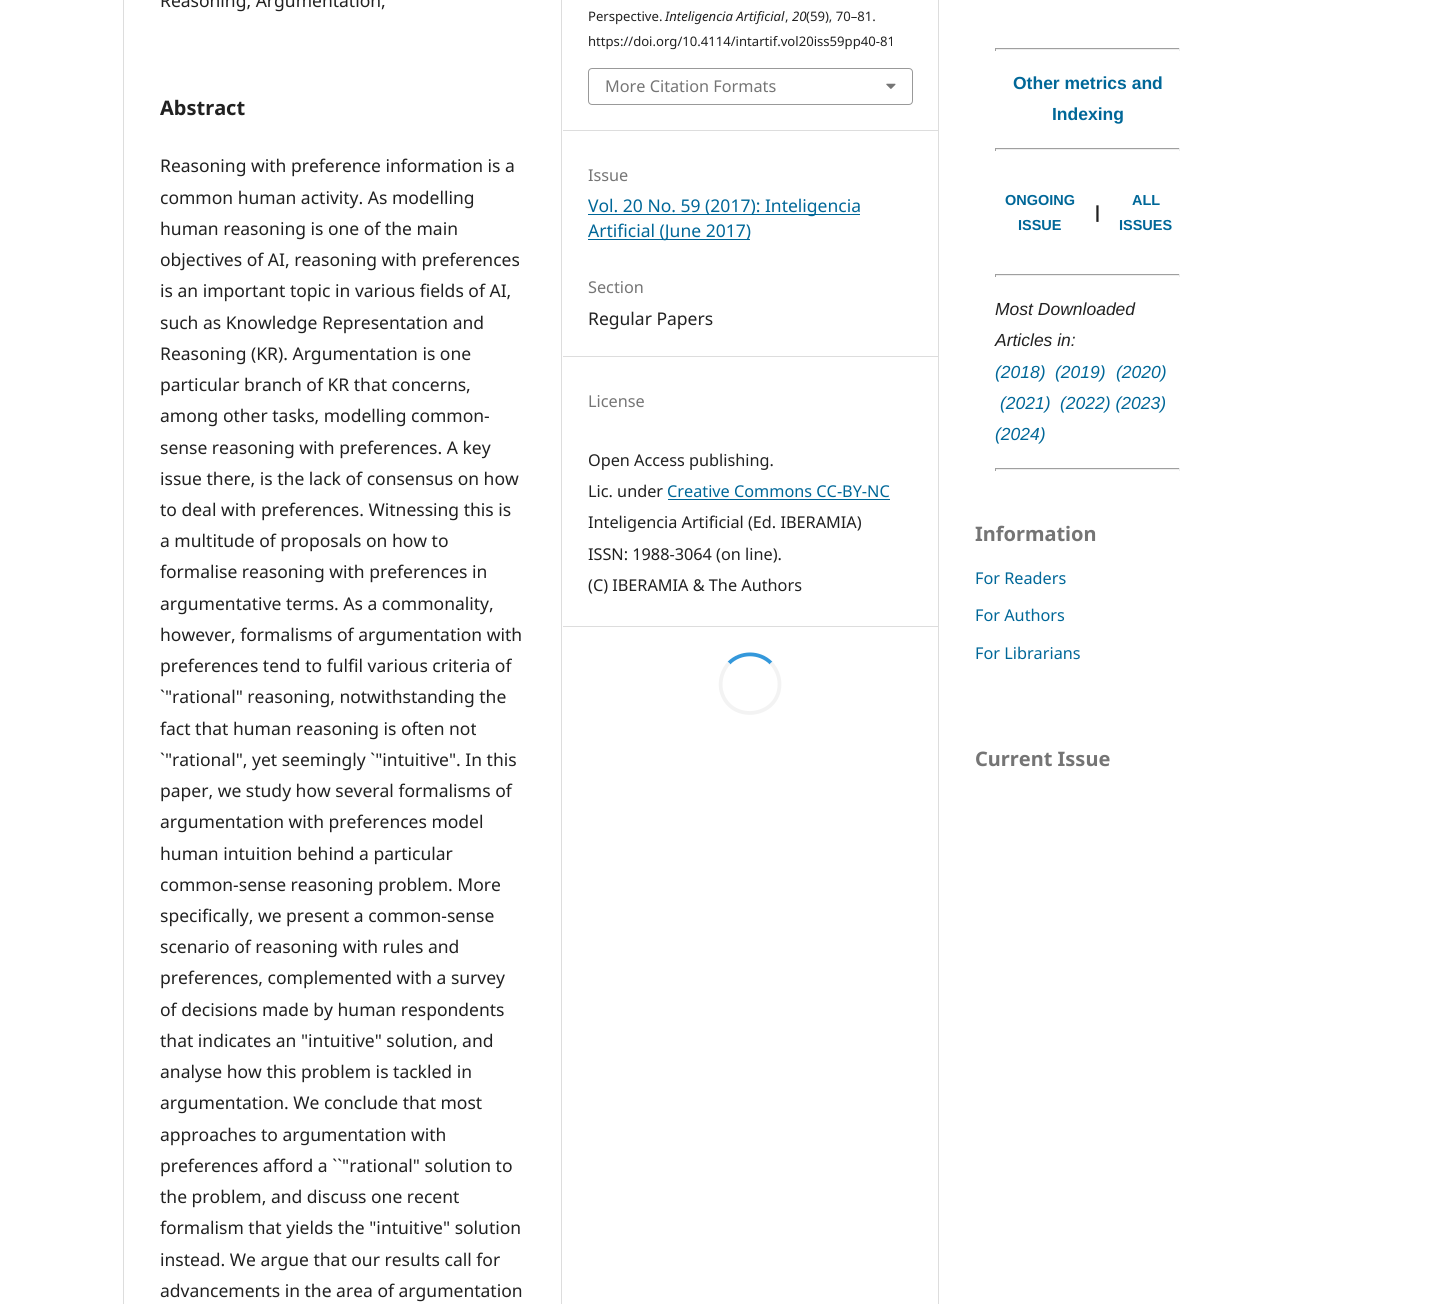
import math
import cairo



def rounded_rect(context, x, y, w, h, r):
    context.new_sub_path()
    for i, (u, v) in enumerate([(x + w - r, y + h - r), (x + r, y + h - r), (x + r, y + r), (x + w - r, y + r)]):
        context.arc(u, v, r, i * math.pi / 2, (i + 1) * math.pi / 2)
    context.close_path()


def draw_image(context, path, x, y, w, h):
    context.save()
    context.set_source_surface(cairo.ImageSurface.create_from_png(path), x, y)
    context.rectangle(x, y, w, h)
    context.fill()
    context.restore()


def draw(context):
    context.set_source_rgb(1, 1, 1)
    context.paint()
    context.set_source_rgb(221 / 255, 221 / 255, 221 / 255)
    context.rectangle(123, 0, 1, 1304)
    context.fill()
    context.rectangle(561, 0, 1, 1304)
    context.fill()
    context.rectangle(563, 130, 375, 1)
    context.fill()
    rounded_rect(context, 588.5, 68.5, 324, 36, 3.5)
    context.set_source_rgb(153 / 255, 153 / 255, 153 / 255)
    context.set_line_width(1)
    context.stroke()
    draw_image(context, "images/1.png", 886, 83, 10, 6)
    context.set_source_rgb(221 / 255, 221 / 255, 221 / 255)
    context.rectangle(563, 356, 375, 1)
    context.fill()
    context.set_source_rgb(0, 103 / 255, 152 / 255)
    context.rectangle(588, 214, 272, 1)
    context.fill()
    context.rectangle(588, 239, 162, 1)
    context.fill()
    context.set_source_rgb(221 / 255, 221 / 255, 221 / 255)
    context.rectangle(563, 626, 375, 1)
    context.fill()
    context.set_source_rgb(0, 103 / 255, 152 / 255)
    context.rectangle(668, 499, 222, 1)
    context.fill()
    context.new_path()
    context.move_to(729, 663)
    context.curve_to(740.5, 651.5, 759.5, 651.5, 771, 663)
    context.set_source_rgb(52 / 255, 152 / 255, 219 / 255)
    context.set_line_width(3.8)
    context.stroke()
    context.new_path()
    context.move_to(771, 663)
    context.curve_to(776, 668.5, 779.5, 676, 779.5, 684)
    context.curve_to(779.5, 719, 728, 724, 721, 689.5)
    context.curve_to(719.5, 680, 722.5, 670, 729, 663)
    context.set_source_rgb(243 / 255, 243 / 255, 243 / 255)
    context.stroke()
    context.set_source_rgb(221 / 255, 221 / 255, 221 / 255)
    context.rectangle(938, 0, 1, 1304)
    context.fill()
    context.set_source_rgb(159 / 255, 159 / 255, 159 / 255)
    context.rectangle(995, 48, 185, 1)
    context.fill()
    context.set_source_rgb(238 / 255, 238 / 255, 238 / 255)
    context.rectangle(1179, 48, 1, 3)
    context.fill()
    context.rectangle(995, 49, 185, 1)
    context.fill()
    context.set_source_rgb(159 / 255, 159 / 255, 159 / 255)
    context.rectangle(995, 48, 1, 3)
    context.fill()
    context.rectangle(995, 148, 185, 1)
    context.fill()
    context.set_source_rgb(238 / 255, 238 / 255, 238 / 255)
    context.rectangle(1179, 148, 1, 3)
    context.fill()
    context.rectangle(995, 149, 185, 1)
    context.fill()
    context.set_source_rgb(159 / 255, 159 / 255, 159 / 255)
    context.rectangle(995, 148, 1, 3)
    context.fill()
    context.rectangle(995, 274, 185, 1)
    context.fill()
    context.set_source_rgb(238 / 255, 238 / 255, 238 / 255)
    context.rectangle(1179, 274, 1, 3)
    context.fill()
    context.rectangle(995, 275, 185, 1)
    context.fill()
    context.set_source_rgb(159 / 255, 159 / 255, 159 / 255)
    context.rectangle(995, 274, 1, 3)
    context.fill()
    context.rectangle(995, 468, 185, 1)
    context.fill()
    context.set_source_rgb(238 / 255, 238 / 255, 238 / 255)
    context.rectangle(1179, 468, 1, 3)
    context.fill()
    context.rectangle(995, 469, 185, 1)
    context.fill()
    context.set_source_rgb(159 / 255, 159 / 255, 159 / 255)
    context.rectangle(995, 468, 1, 3)
    context.fill()
    context.select_font_face("Noto Sans")
    context.set_font_size(17.5)
    context.set_source_rgb(33 / 255, 33 / 255, 33 / 255)
    context.move_to(160, 7)
    context.show_text("Reasoning, Argumentation,")
    context.select_font_face("Noto Sans", cairo.FontSlant.NORMAL, cairo.FontWeight.BOLD)
    context.set_font_size(20)
    context.move_to(160, 115)
    context.show_text("Abstract")
    context.select_font_face("Noto Sans")
    context.set_font_size(17.5)
    context.move_to(160, 172)
    context.show_text("Reasoning with preference information is a")
    context.move_to(160, 204)
    context.show_text("common human activity. As modelling")
    context.move_to(160, 235)
    context.show_text("human reasoning is one of the main")
    context.move_to(160, 266)
    context.show_text("objectives of AI, reasoning with preferences")
    context.move_to(160, 297)
    context.show_text("is an important topic in various fields of AI,")
    context.move_to(160, 329)
    context.show_text("such as Knowledge Representation and")
    context.move_to(160, 360)
    context.show_text("Reasoning (KR). Argumentation is one")
    context.move_to(160, 391)
    context.show_text("particular branch of KR that concerns,")
    context.move_to(160, 422)
    context.show_text("among other tasks, modelling common-")
    context.move_to(160, 454)
    context.show_text("sense reasoning with preferences. A key")
    context.move_to(160, 485)
    context.show_text("issue there, is the lack of consensus on how")
    context.move_to(160, 516)
    context.show_text("to deal with preferences. Witnessing this is")
    context.move_to(160, 547)
    context.show_text("a multitude of proposals on how to")
    context.move_to(160, 578)
    context.show_text("formalise reasoning with preferences in")
    context.move_to(160, 610)
    context.show_text("argumentative terms. As a commonality,")
    context.move_to(160, 641)
    context.show_text("however, formalisms of argumentation with")
    context.move_to(160, 672)
    context.show_text("preferences tend to fulfil various criteria of")
    context.move_to(160, 703)
    context.show_text("`\"rational\" reasoning, notwithstanding the")
    context.move_to(160, 735)
    context.show_text("fact that human reasoning is often not")
    context.move_to(160, 766)
    context.show_text("`\"rational\", yet seemingly `\"intuitive\". In this")
    context.move_to(160, 797)
    context.show_text("paper, we study how several formalisms of")
    context.move_to(160, 828)
    context.show_text("argumentation with preferences model")
    context.move_to(160, 860)
    context.show_text("human intuition behind a particular")
    context.move_to(160, 891)
    context.show_text("common-sense reasoning problem. More")
    context.move_to(160, 922)
    context.show_text("specifically, we present a common-sense")
    context.move_to(160, 953)
    context.show_text("scenario of reasoning with rules and")
    context.move_to(160, 984)
    context.show_text("preferences, complemented with a survey")
    context.move_to(160, 1016)
    context.show_text("of decisions made by human respondents")
    context.move_to(160, 1047)
    context.show_text("that indicates an \"intuitive\" solution, and")
    context.move_to(160, 1078)
    context.show_text("analyse how this problem is tackled in")
    context.move_to(160, 1109)
    context.show_text("argumentation. We conclude that most")
    context.move_to(160, 1141)
    context.show_text("approaches to argumentation with")
    context.move_to(160, 1172)
    context.show_text("preferences afford a ``\"rational\" solution to")
    context.move_to(160, 1203)
    context.show_text("the problem, and discuss one recent")
    context.move_to(160, 1234)
    context.show_text("formalism that yields the \"intuitive\" solution")
    context.move_to(160, 1266)
    context.show_text("instead. We argue that our results call for")
    context.move_to(160, 1297)
    context.show_text("advancements in the area of argumentation")
    context.set_font_size(13.1)
    context.move_to(588, 21)
    context.show_text("Perspective.")
    context.select_font_face("Noto Sans", cairo.FontSlant.ITALIC)
    context.move_to(665, 21)
    context.show_text("Inteligencia Artificial")
    context.select_font_face("Noto Sans")
    context.move_to(785, 21)
    context.show_text(",")
    context.select_font_face("Noto Sans", cairo.FontSlant.ITALIC)
    context.move_to(792, 21)
    context.show_text("20")
    context.select_font_face("Noto Sans")
    context.move_to(806, 21)
    context.show_text("(59), 70–81.")
    context.move_to(588, 46)
    context.show_text("https://doi.org/10.4114/intartif.vol20iss59pp40-81")
    context.set_font_size(16.25)
    context.set_source_rgb(117 / 255, 117 / 255, 117 / 255)
    context.move_to(605, 92)
    context.show_text("More Citation Formats")
    context.move_to(588, 181)
    context.show_text("Issue")
    context.set_font_size(17.5)
    context.set_source_rgb(0, 103 / 255, 152 / 255)
    context.move_to(588, 212)
    context.show_text("Vol. 20 No. 59 (2017): Inteligencia")
    context.move_to(588, 237)
    context.show_text("Artificial (June 2017)")
    context.set_font_size(16.25)
    context.set_source_rgb(117 / 255, 117 / 255, 117 / 255)
    context.move_to(588, 293)
    context.show_text("Section")
    context.set_font_size(17.5)
    context.set_source_rgb(33 / 255, 33 / 255, 33 / 255)
    context.move_to(588, 325)
    context.show_text("Regular Papers")
    context.set_font_size(16.25)
    context.set_source_rgb(117 / 255, 117 / 255, 117 / 255)
    context.move_to(588, 407)
    context.show_text("License")
    context.set_source_rgb(33 / 255, 33 / 255, 33 / 255)
    context.move_to(588, 466)
    context.show_text("Open Access publishing.")
    context.move_to(588, 497)
    context.show_text("Lic. under")
    context.set_source_rgb(0, 103 / 255, 152 / 255)
    context.move_to(667, 497)
    context.show_text("Creative Commons CC-BY-NC")
    context.set_source_rgb(33 / 255, 33 / 255, 33 / 255)
    context.move_to(588, 528)
    context.show_text("Inteligencia Artificial (Ed. IBERAMIA)")
    context.move_to(588, 560)
    context.show_text("ISSN: 1988-3064 (on line).")
    context.move_to(588, 591)
    context.show_text("(C) IBERAMIA & The Authors")
    context.select_font_face("Liberation Sans", cairo.FontSlant.NORMAL, cairo.FontWeight.BOLD)
    context.set_font_size(17.5)
    context.set_source_rgb(0, 103 / 255, 152 / 255)
    context.move_to(1013, 89)
    context.show_text("Other metrics and")
    context.move_to(1052, 120)
    context.show_text("Indexing")
    context.set_font_size(14.5)
    context.move_to(1005, 205)
    context.show_text("ONGOING")
    context.move_to(1018, 230)
    context.show_text("ISSUE")
    context.set_font_size(17.5)
    context.set_source_rgb(33 / 255, 33 / 255, 33 / 255)
    context.move_to(1095, 218)
    context.show_text("|")
    context.set_font_size(14.5)
    context.set_source_rgb(0, 103 / 255, 152 / 255)
    context.move_to(1132, 205)
    context.show_text("ALL")
    context.move_to(1119, 230)
    context.show_text("ISSUES")
    context.select_font_face("Liberation Sans", cairo.FontSlant.ITALIC)
    context.set_font_size(17.5)
    context.set_source_rgb(33 / 255, 33 / 255, 33 / 255)
    context.move_to(995, 315)
    context.show_text("Most Downloaded")
    context.move_to(995, 346)
    context.show_text("Articles in:")
    context.set_source_rgb(0, 103 / 255, 152 / 255)
    context.move_to(995, 378)
    context.show_text("(2018)")
    context.move_to(1055, 378)
    context.show_text("(2019)")
    context.move_to(1116, 378)
    context.show_text("(2020)")
    context.move_to(1000, 409)
    context.show_text("(2021)")
    context.move_to(1060, 409)
    context.show_text("(2022) (2023)")
    context.move_to(995, 440)
    context.show_text("(2024)")
    context.select_font_face("Noto Sans", cairo.FontSlant.NORMAL, cairo.FontWeight.BOLD)
    context.set_font_size(20)
    context.set_source_rgb(117 / 255, 117 / 255, 117 / 255)
    context.move_to(975, 541)
    context.show_text("Information")
    context.select_font_face("Noto Sans")
    context.set_font_size(16.25)
    context.set_source_rgb(0, 103 / 255, 152 / 255)
    context.move_to(975, 584)
    context.show_text("For Readers")
    context.move_to(975, 621)
    context.show_text("For Authors")
    context.move_to(975, 659)
    context.show_text("For Librarians")
    context.select_font_face("Noto Sans", cairo.FontSlant.NORMAL, cairo.FontWeight.BOLD)
    context.set_font_size(20)
    context.set_source_rgb(117 / 255, 117 / 255, 117 / 255)
    context.move_to(975, 766)
    context.show_text("Current Issue")


surface = cairo.ImageSurface(cairo.Format.RGB24, 1435, 1304)
context = cairo.Context(surface)
options = cairo.FontOptions()
options.set_hint_metrics(cairo.HintMetrics.OFF)
options.set_hint_style(cairo.HintStyle.NONE)
context.set_font_options(options)
context.set_miter_limit(4)
draw(context)
surface.write_to_png("out.png")
